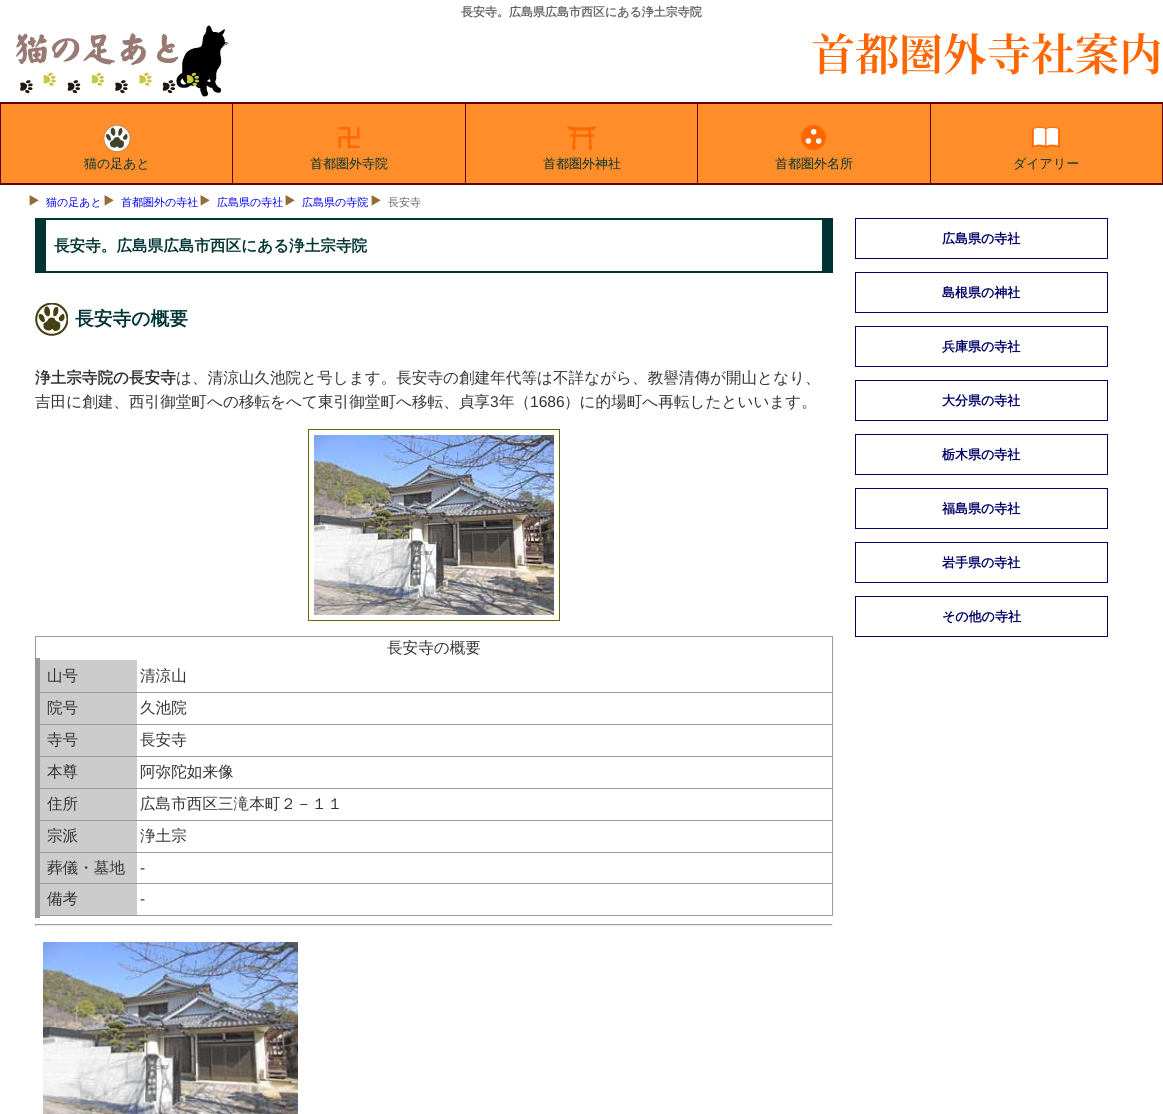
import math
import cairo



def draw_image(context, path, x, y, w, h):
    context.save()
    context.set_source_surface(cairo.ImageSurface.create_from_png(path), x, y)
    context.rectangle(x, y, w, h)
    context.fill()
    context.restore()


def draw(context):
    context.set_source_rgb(1, 1, 1)
    context.paint()
    draw_image(context, "images/1.png", 16, 25, 213, 72)
    draw_image(context, "images/2.png", 812, 33, 348, 42)
    context.set_source_rgb(1, 141 / 255, 41 / 255)
    context.rectangle(1, 104, 1161, 79)
    context.fill()
    context.set_source_rgb(92 / 255, 3 / 255, 14 / 255)
    context.rectangle(0, 102, 1163, 2)
    context.fill()
    context.rectangle(0, 183, 1163, 2)
    context.fill()
    context.rectangle(0, 104, 1, 79)
    context.fill()
    context.rectangle(232, 104, 1, 79)
    context.fill()
    draw_image(context, "images/3.png", 103, 125, 28, 27)
    context.rectangle(465, 104, 1, 79)
    context.fill()
    draw_image(context, "images/4.png", 338, 127, 22, 21)
    context.rectangle(697, 104, 1, 79)
    context.fill()
    draw_image(context, "images/5.png", 567, 126, 30, 24)
    context.rectangle(930, 104, 1, 79)
    context.fill()
    context.set_source_rgb(1, 102 / 255, 0)
    context.arc(813.5, 137.5, 12.5, 0, 2 * math.pi)
    context.fill()
    context.set_source_rgb(1, 1, 1)
    context.arc(813.7, 131.8, 2.8, 0, 2 * math.pi)
    context.fill()
    context.arc(808.4, 141, 2.8, 0, 2 * math.pi)
    context.fill()
    context.arc(818.7, 141, 2.8, 0, 2 * math.pi)
    context.fill()
    context.set_source_rgb(92 / 255, 3 / 255, 14 / 255)
    context.rectangle(1162, 104, 1, 79)
    context.fill()
    draw_image(context, "images/6.png", 1031, 126, 29, 22)
    draw_image(context, "images/7.png", 29, 195, 10, 11)
    draw_image(context, "images/7.png", 104, 195, 10, 11)
    draw_image(context, "images/7.png", 200, 195, 10, 11)
    draw_image(context, "images/7.png", 285, 195, 10, 11)
    draw_image(context, "images/7.png", 371, 195, 10, 11)
    context.set_source_rgb(0, 51 / 255, 51 / 255)
    context.rectangle(46, 218, 776, 2)
    context.fill()
    context.rectangle(822, 218, 11, 53)
    context.fill()
    context.rectangle(46, 271, 787, 2)
    context.fill()
    context.rectangle(35, 218, 11, 55)
    context.fill()
    draw_image(context, "images/8.png", 35, 303, 33, 33)
    context.rectangle(308.5, 429.5, 251, 191)
    context.set_source_rgb(102 / 255, 102 / 255, 0)
    context.set_line_width(1)
    context.stroke()
    draw_image(context, "images/9.png", 314, 435, 240, 180)
    context.set_source_rgb(153 / 255, 153 / 255, 153 / 255)
    context.rectangle(35, 636, 798, 1)
    context.fill()
    context.rectangle(832, 636, 1, 280)
    context.fill()
    context.rectangle(35, 915, 798, 1)
    context.fill()
    context.rectangle(35, 636, 1, 22)
    context.fill()
    context.set_source_rgb(204 / 255, 204 / 255, 204 / 255)
    context.rectangle(40, 660, 97, 32)
    context.fill()
    context.set_source_rgb(153 / 255, 153 / 255, 153 / 255)
    context.rectangle(37, 692, 796, 1)
    context.fill()
    context.set_source_rgb(204 / 255, 204 / 255, 204 / 255)
    context.rectangle(40, 693, 97, 31)
    context.fill()
    context.set_source_rgb(153 / 255, 153 / 255, 153 / 255)
    context.rectangle(37, 724, 796, 1)
    context.fill()
    context.set_source_rgb(204 / 255, 204 / 255, 204 / 255)
    context.rectangle(40, 725, 97, 31)
    context.fill()
    context.set_source_rgb(153 / 255, 153 / 255, 153 / 255)
    context.rectangle(37, 756, 796, 1)
    context.fill()
    context.set_source_rgb(204 / 255, 204 / 255, 204 / 255)
    context.rectangle(40, 757, 97, 31)
    context.fill()
    context.set_source_rgb(153 / 255, 153 / 255, 153 / 255)
    context.rectangle(37, 788, 796, 1)
    context.fill()
    context.set_source_rgb(204 / 255, 204 / 255, 204 / 255)
    context.rectangle(40, 789, 97, 31)
    context.fill()
    context.set_source_rgb(153 / 255, 153 / 255, 153 / 255)
    context.rectangle(37, 820, 796, 1)
    context.fill()
    context.set_source_rgb(204 / 255, 204 / 255, 204 / 255)
    context.rectangle(40, 821, 97, 31)
    context.fill()
    context.set_source_rgb(153 / 255, 153 / 255, 153 / 255)
    context.rectangle(37, 852, 796, 1)
    context.fill()
    context.set_source_rgb(204 / 255, 204 / 255, 204 / 255)
    context.rectangle(40, 853, 97, 30)
    context.fill()
    context.set_source_rgb(153 / 255, 153 / 255, 153 / 255)
    context.rectangle(37, 883, 796, 1)
    context.fill()
    context.set_source_rgb(204 / 255, 204 / 255, 204 / 255)
    context.rectangle(40, 884, 97, 31)
    context.fill()
    context.set_source_rgb(153 / 255, 153 / 255, 153 / 255)
    context.rectangle(35, 658, 5, 260)
    context.fill()
    context.set_source_rgb(159 / 255, 159 / 255, 159 / 255)
    context.rectangle(35, 924, 798, 1)
    context.fill()
    context.set_source_rgb(238 / 255, 238 / 255, 238 / 255)
    context.rectangle(832, 924, 1, 2)
    context.fill()
    context.rectangle(35, 925, 798, 1)
    context.fill()
    context.set_source_rgb(159 / 255, 159 / 255, 159 / 255)
    context.rectangle(35, 924, 1, 2)
    context.fill()
    draw_image(context, "images/10.png", 43, 942, 255, 172)
    context.rectangle(855.5, 218.5, 252, 40)
    context.set_source_rgb(0, 0, 102 / 255)
    context.stroke()
    context.rectangle(855.5, 272.5, 252, 40)
    context.stroke()
    context.rectangle(855.5, 326.5, 252, 40)
    context.stroke()
    context.rectangle(855.5, 380.5, 252, 40)
    context.stroke()
    context.rectangle(855.5, 434.5, 252, 40)
    context.stroke()
    context.rectangle(855.5, 488.5, 252, 40)
    context.stroke()
    context.rectangle(855.5, 542.5, 252, 40)
    context.stroke()
    context.rectangle(855.5, 596.5, 252, 40)
    context.stroke()
    context.select_font_face("WenQuanYi Zen Hei", cairo.FontSlant.NORMAL, cairo.FontWeight.BOLD)
    context.set_font_size(12)
    context.set_source_rgb(102 / 255, 102 / 255, 102 / 255)
    context.move_to(461, 16)
    context.show_text("長安寺。広島県広島市西区にある浄土宗寺院")
    context.select_font_face("WenQuanYi Zen Hei Medium")
    context.set_font_size(13)
    context.set_source_rgb(0, 51 / 255, 51 / 255)
    context.move_to(84, 168)
    context.show_text("猫の足あと")
    context.move_to(310, 168)
    context.show_text("首都圏外寺院")
    context.move_to(543, 168)
    context.show_text("首都圏外神社")
    context.move_to(775, 168)
    context.show_text("首都圏外名所")
    context.move_to(1013, 168)
    context.show_text("ダイアリー")
    context.set_font_size(11)
    context.set_source_rgb(0, 0, 238 / 255)
    context.move_to(46, 206)
    context.show_text("猫の足あと")
    context.move_to(121, 206)
    context.show_text("首都圏外の寺社")
    context.move_to(217, 206)
    context.show_text("広島県の寺社")
    context.move_to(302, 206)
    context.show_text("広島県の寺院")
    context.set_source_rgb(102 / 255, 102 / 255, 102 / 255)
    context.move_to(388, 206)
    context.show_text("長安寺")
    context.select_font_face("WenQuanYi Zen Hei", cairo.FontSlant.NORMAL, cairo.FontWeight.BOLD)
    context.set_font_size(15.6)
    context.set_source_rgb(0, 51 / 255, 51 / 255)
    context.move_to(54, 251)
    context.show_text("長安寺。広島県広島市西区にある浄土宗寺院")
    context.set_font_size(18.75)
    context.move_to(75, 325)
    context.show_text("長安寺の概要")
    context.set_font_size(15.6)
    context.set_source_rgb(51 / 255, 51 / 255, 51 / 255)
    context.move_to(35, 383)
    context.show_text("浄土宗寺院の長安寺")
    context.select_font_face("WenQuanYi Zen Hei Medium")
    context.move_to(176, 383)
    context.show_text("は、清涼山久池院と号します。長安寺の創建年代等は不詳ながら、教譽清傳が開山となり、")
    context.move_to(35, 407)
    context.show_text("吉田に創建、西引御堂町への移転をへて東引御堂町へ移転、貞享")
    context.select_font_face("Liberation Sans")
    context.move_to(490, 407)
    context.show_text("3")
    context.select_font_face("WenQuanYi Zen Hei Medium")
    context.move_to(499, 407)
    context.show_text("年（")
    context.select_font_face("Liberation Sans")
    context.move_to(530, 407)
    context.show_text("1686")
    context.select_font_face("WenQuanYi Zen Hei Medium")
    context.move_to(564, 407)
    context.show_text("）に的場町へ再転したといいます。")
    context.move_to(387, 653)
    context.show_text("長安寺の概要")
    context.move_to(47, 681)
    context.show_text("山号")
    context.move_to(140, 681)
    context.show_text("清涼山")
    context.move_to(47, 713)
    context.show_text("院号")
    context.move_to(140, 713)
    context.show_text("久池院")
    context.move_to(47, 745)
    context.show_text("寺号")
    context.move_to(140, 745)
    context.show_text("長安寺")
    context.move_to(47, 777)
    context.show_text("本尊")
    context.move_to(140, 777)
    context.show_text("阿弥陀如来像")
    context.move_to(47, 809)
    context.show_text("住所")
    context.move_to(140, 809)
    context.show_text("広島市西区三滝本町２－１１")
    context.move_to(47, 841)
    context.show_text("宗派")
    context.move_to(140, 841)
    context.show_text("浄土宗")
    context.move_to(47, 873)
    context.show_text("葬儀・墓地")
    context.select_font_face("Liberation Sans")
    context.move_to(140, 873)
    context.show_text("-")
    context.select_font_face("WenQuanYi Zen Hei Medium")
    context.move_to(47, 904)
    context.show_text("備考")
    context.select_font_face("Liberation Sans")
    context.move_to(140, 904)
    context.show_text("-")
    context.select_font_face("WenQuanYi Zen Hei", cairo.FontSlant.NORMAL, cairo.FontWeight.BOLD)
    context.set_font_size(13)
    context.set_source_rgb(0, 0, 102 / 255)
    context.move_to(942, 243)
    context.show_text("広島県の寺社")
    context.move_to(942, 297)
    context.show_text("島根県の神社")
    context.move_to(942, 351)
    context.show_text("兵庫県の寺社")
    context.move_to(942, 405)
    context.show_text("大分県の寺社")
    context.move_to(942, 459)
    context.show_text("栃木県の寺社")
    context.move_to(942, 513)
    context.show_text("福島県の寺社")
    context.move_to(942, 567)
    context.show_text("岩手県の寺社")
    context.move_to(942, 621)
    context.show_text("その他の寺社")


surface = cairo.ImageSurface(cairo.Format.RGB24, 1163, 1114)
context = cairo.Context(surface)
options = cairo.FontOptions()
options.set_hint_metrics(cairo.HintMetrics.OFF)
options.set_hint_style(cairo.HintStyle.NONE)
context.set_font_options(options)
context.set_miter_limit(4)
draw(context)
surface.write_to_png("out.png")
